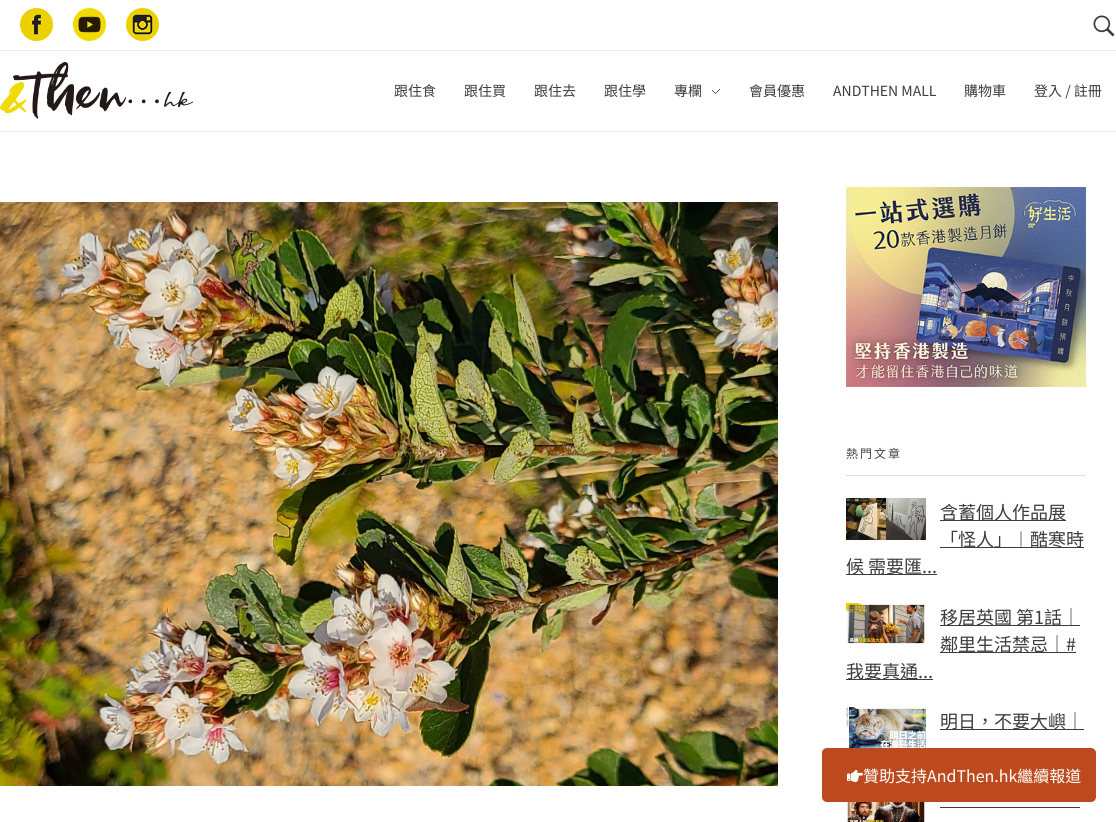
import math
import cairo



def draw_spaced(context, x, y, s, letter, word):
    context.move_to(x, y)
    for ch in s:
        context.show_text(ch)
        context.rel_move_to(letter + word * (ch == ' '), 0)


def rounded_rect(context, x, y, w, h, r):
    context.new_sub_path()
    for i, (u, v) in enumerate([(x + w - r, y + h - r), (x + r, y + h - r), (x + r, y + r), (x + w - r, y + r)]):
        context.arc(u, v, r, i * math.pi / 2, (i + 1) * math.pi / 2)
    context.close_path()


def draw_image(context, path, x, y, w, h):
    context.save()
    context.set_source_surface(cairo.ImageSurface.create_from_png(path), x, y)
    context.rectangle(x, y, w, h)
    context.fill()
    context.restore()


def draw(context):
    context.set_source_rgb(1, 1, 1)
    context.paint()
    context.set_source_rgb(234 / 255, 234 / 255, 234 / 255)
    context.rectangle(0, 50, 1116, 1)
    context.fill()
    draw_image(context, "images/1.png", 20, 8, 33, 33)
    draw_image(context, "images/2.png", 73, 8, 33, 33)
    draw_image(context, "images/3.png", 126, 8, 33, 33)
    draw_image(context, "images/4.png", 1093, 15, 22, 22)
    context.rectangle(0, 131, 1116, 1)
    context.fill()
    draw_image(context, "images/5.png", 0, 62, 193, 57)
    draw_image(context, "images/6.png", 712, 89, 8, 5)
    draw_image(context, "images/7.png", 0, 202, 778, 584)
    draw_image(context, "images/8.png", 846, 187, 240, 200)
    context.set_source_rgb(222 / 255, 222 / 255, 222 / 255)
    context.rectangle(846, 475, 240, 1)
    context.fill()
    draw_image(context, "images/9.png", 846, 498, 80, 42)
    context.set_source_rgb(61 / 255, 61 / 255, 61 / 255)
    context.rectangle(940, 520, 126, 1)
    context.fill()
    context.rectangle(940, 547, 144, 1)
    context.fill()
    context.rectangle(846, 574, 91, 1)
    context.fill()
    draw_image(context, "images/10.png", 846, 603, 79, 41)
    context.rectangle(940, 625, 140, 1)
    context.fill()
    context.rectangle(940, 652, 136, 1)
    context.fill()
    context.rectangle(846, 679, 87, 1)
    context.fill()
    draw_image(context, "images/11.png", 846, 707, 80, 41)
    context.rectangle(940, 729, 144, 1)
    context.fill()
    draw_image(context, "images/12.png", 846, 802, 79, 20)
    context.rectangle(940, 807, 140, 1)
    context.fill()
    context.set_source_rgb(188 / 255, 74 / 255, 30 / 255)
    rounded_rect(context, 822, 748, 274, 54, 5)
    context.fill()
    draw_image(context, "images/13.png", 847, 770, 16, 12)
    context.select_font_face("Noto Sans HK")
    context.set_font_size(14)
    context.set_source_rgb(61 / 255, 61 / 255, 61 / 255)
    context.move_to(394, 96)
    context.show_text("跟住食")
    context.move_to(464, 96)
    context.show_text("跟住買")
    context.move_to(534, 96)
    context.show_text("跟住去")
    context.move_to(604, 96)
    context.show_text("跟住學")
    context.move_to(674, 96)
    context.show_text("專欄")
    context.move_to(749, 96)
    context.show_text("會員優惠")
    context.move_to(833, 96)
    context.show_text("ANDTHEN MALL")
    context.move_to(964, 96)
    context.show_text("購物車")
    context.move_to(1034, 96)
    context.show_text("登入 / 註冊")
    context.set_font_size(12)
    context.set_source_rgb(68 / 255, 68 / 255, 68 / 255)
    draw_spaced(context, 846, 458, "熱門文章", 2, 0)
    context.set_font_size(18)
    context.set_source_rgb(61 / 255, 61 / 255, 61 / 255)
    context.move_to(940, 519)
    context.show_text("含蓄個人作品展")
    context.move_to(940, 546)
    context.show_text("「怪人」︱酷寒時")
    context.move_to(846, 573)
    context.show_text("候 需要匯...")
    context.move_to(940, 624)
    context.show_text("移居英國 第1話｜")
    context.move_to(940, 651)
    context.show_text("鄰里生活禁忌｜#")
    context.move_to(846, 678)
    context.show_text("我要真通...")
    context.move_to(940, 728)
    context.show_text("明日，不要大嶼｜")
    context.set_font_size(16)
    context.set_source_rgb(1, 1, 1)
    context.move_to(863, 782)
    context.show_text("贊助支持AndThen.hk繼續報道")


surface = cairo.ImageSurface(cairo.Format.RGB24, 1116, 822)
context = cairo.Context(surface)
options = cairo.FontOptions()
options.set_hint_metrics(cairo.HintMetrics.OFF)
options.set_hint_style(cairo.HintStyle.NONE)
context.set_font_options(options)
context.set_miter_limit(4)
draw(context)
surface.write_to_png("out.png")
